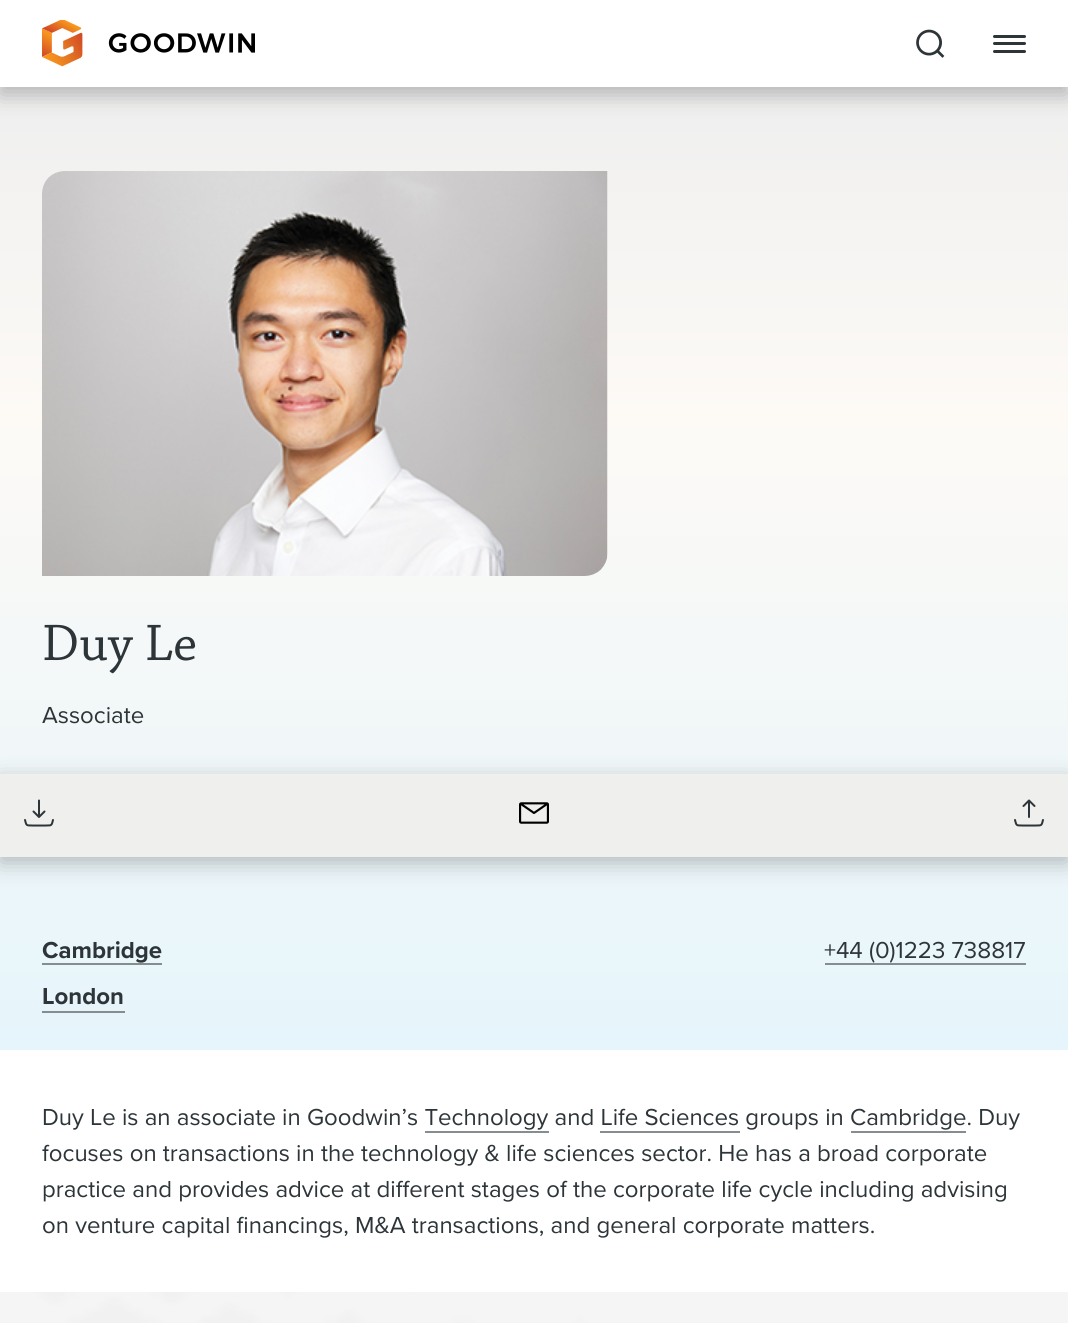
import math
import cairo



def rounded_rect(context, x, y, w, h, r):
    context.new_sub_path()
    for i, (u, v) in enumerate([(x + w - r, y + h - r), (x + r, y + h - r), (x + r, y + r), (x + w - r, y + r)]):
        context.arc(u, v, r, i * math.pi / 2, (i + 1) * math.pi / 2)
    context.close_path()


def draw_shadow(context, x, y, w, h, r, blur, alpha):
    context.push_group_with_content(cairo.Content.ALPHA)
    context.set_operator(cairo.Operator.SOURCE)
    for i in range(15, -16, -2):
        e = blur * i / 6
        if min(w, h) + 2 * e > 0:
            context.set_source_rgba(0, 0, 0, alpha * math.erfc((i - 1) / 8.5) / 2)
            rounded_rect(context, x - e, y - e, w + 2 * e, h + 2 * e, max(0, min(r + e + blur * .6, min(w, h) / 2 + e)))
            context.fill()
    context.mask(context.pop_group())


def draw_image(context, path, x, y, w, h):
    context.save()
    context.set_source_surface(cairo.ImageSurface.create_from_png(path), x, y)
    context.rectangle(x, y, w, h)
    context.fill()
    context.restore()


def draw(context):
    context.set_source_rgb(1, 1, 1)
    context.paint()
    gradient = cairo.LinearGradient(534, 87, 534, 1050)
    gradient.add_color_stop_rgba(0, 239 / 255, 239 / 255, 239 / 255, 1)
    gradient.add_color_stop_rgba(0.34, 253 / 255, 250 / 255, 246 / 255, 1)
    gradient.add_color_stop_rgba(0.99, 230 / 255, 245 / 255, 251 / 255, 1)
    context.set_source(gradient)
    context.rectangle(0, 87, 1068, 963)
    context.fill()
    context.set_source_rgb(0, 0, 0)
    draw_shadow(context, 0, 8, 1068, 87, 0, 11, 0.25)
    context.set_source_rgb(1, 1, 1)
    context.rectangle(0, 0, 1068, 87)
    context.fill()
    draw_image(context, "images/1.png", 42, 20, 213, 47)
    draw_image(context, "images/2.png", 916, 29, 29, 29)
    context.set_source_rgb(45 / 255, 53 / 255, 57 / 255)
    rounded_rect(context, 993, 42, 33, 3, 1.5)
    context.fill()
    rounded_rect(context, 993, 35, 33, 3, 1.5)
    context.fill()
    rounded_rect(context, 993, 50, 33, 3, 1.5)
    context.fill()
    draw_image(context, "images/3.png", 42, 171, 566, 405)
    context.set_source_rgb(0, 0, 0)
    draw_shadow(context, 0, 780, 1068, 83, 0, 11, 0.25)
    context.set_source_rgb(239 / 255, 240 / 255, 237 / 255)
    context.rectangle(0, 774, 1068, 83)
    context.fill()
    context.new_path()
    context.move_to(39, 817)
    context.line_to(39, 800.5)
    context.move_to(39, 817)
    context.line_to(33.5, 811.5)
    context.move_to(39, 817)
    context.line_to(44.5, 811.5)
    context.move_to(25, 820)
    context.curve_to(26.5, 825.5, 26, 825.5, 32, 825.5)
    context.line_to(46, 825.5)
    context.curve_to(52, 825.5, 51.5, 825.5, 53, 820)
    context.set_source_rgb(45 / 255, 53 / 255, 57 / 255)
    context.set_line_cap(cairo.LineCap.ROUND)
    context.set_line_join(cairo.LineJoin.ROUND)
    context.stroke()
    draw_image(context, "images/4.png", 519, 802, 30, 22)
    context.new_path()
    context.move_to(1015, 820)
    context.curve_to(1016.5, 825.5, 1016, 825.5, 1022, 825.5)
    context.line_to(1036, 825.5)
    context.curve_to(1042, 825.5, 1041.5, 825.5, 1043, 820)
    context.move_to(1029, 800.5)
    context.line_to(1029, 817)
    context.close_path()
    context.move_to(1029, 800.5)
    context.line_to(1023.5, 806)
    context.close_path()
    context.move_to(1029, 800.5)
    context.line_to(1034.5, 806)
    context.close_path()
    context.stroke()
    context.set_source_rgb(134 / 255, 141 / 255, 145 / 255)
    context.rectangle(42, 963, 120, 2)
    context.fill()
    context.rectangle(825, 963, 201, 2)
    context.fill()
    context.rectangle(42, 1011, 83, 2)
    context.fill()
    context.set_source_rgb(245 / 255, 245 / 255, 245 / 255)
    context.rectangle(0, 1292, 1068, 31)
    context.fill()
    draw_image(context, "images/5.png", 33, 1292, 557, 31)
    context.set_source_rgb(134 / 255, 141 / 255, 145 / 255)
    context.rectangle(425, 1131, 124, 2)
    context.fill()
    context.rectangle(600, 1131, 140, 2)
    context.fill()
    context.rectangle(851, 1131, 115, 2)
    context.fill()
    context.select_font_face("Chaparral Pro")
    context.set_font_size(54)
    context.set_source_rgb(45 / 255, 53 / 255, 57 / 255)
    context.move_to(42, 660)
    context.show_text("Duy Le")
    context.select_font_face("Proxima Nova")
    context.set_font_size(24)
    context.move_to(42, 723)
    context.show_text("Associate")
    context.select_font_face("Proxima Nova", cairo.FontSlant.NORMAL, cairo.FontWeight.BOLD)
    context.move_to(42, 958)
    context.show_text("Cambridge")
    context.select_font_face("Proxima Nova")
    context.move_to(824, 958)
    context.show_text("+44 (0)1223 738817")
    context.select_font_face("Proxima Nova", cairo.FontSlant.NORMAL, cairo.FontWeight.BOLD)
    context.move_to(42, 1004)
    context.show_text("London")
    context.select_font_face("Proxima Nova")
    context.move_to(42, 1125)
    context.show_text("Duy Le is an associate in Goodwin’s Technology and Life Sciences groups in Cambridge. Duy")
    context.move_to(42, 1161)
    context.show_text("focuses on transactions in the technology & life sciences sector. He has a broad corporate")
    context.move_to(42, 1197)
    context.show_text("practice and provides advice at different stages of the corporate life cycle including advising")
    context.move_to(42, 1233)
    context.show_text("on venture capital financings, M&A transactions, and general corporate matters.")


surface = cairo.ImageSurface(cairo.Format.RGB24, 1068, 1323)
context = cairo.Context(surface)
options = cairo.FontOptions()
options.set_hint_metrics(cairo.HintMetrics.OFF)
options.set_hint_style(cairo.HintStyle.NONE)
context.set_font_options(options)
context.set_miter_limit(4)
draw(context)
surface.write_to_png("out.png")
